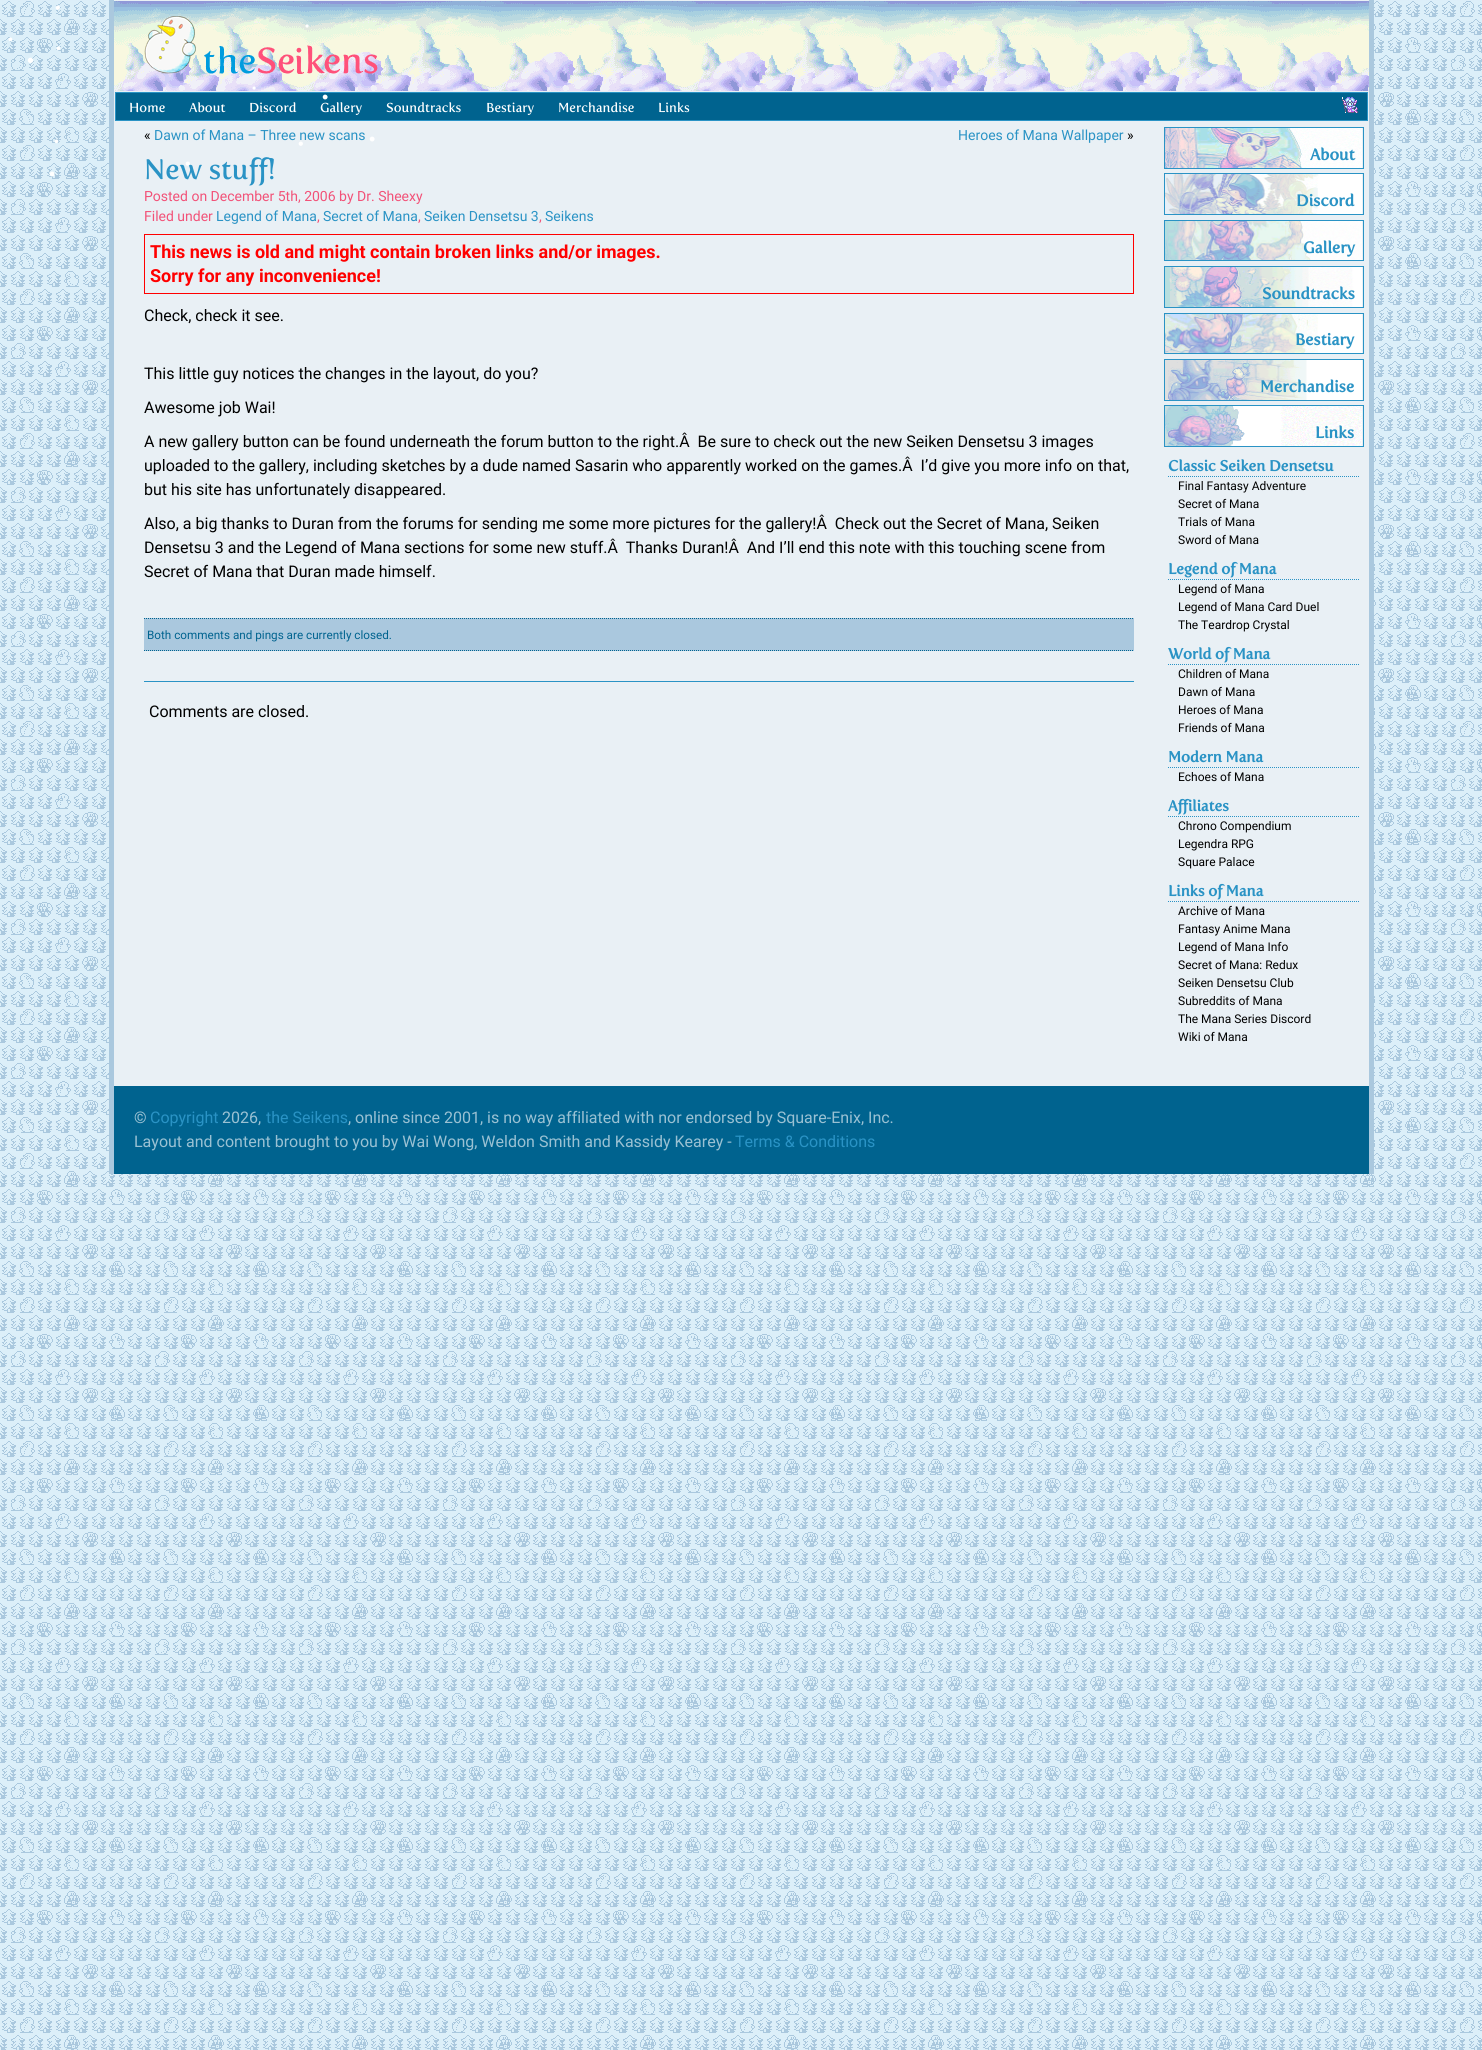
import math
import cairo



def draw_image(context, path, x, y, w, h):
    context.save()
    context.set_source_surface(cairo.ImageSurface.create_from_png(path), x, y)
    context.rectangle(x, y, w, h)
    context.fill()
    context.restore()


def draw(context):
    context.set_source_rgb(220 / 255, 238 / 255, 249 / 255)
    context.paint()
    draw_image(context, "images/1.png", 0, 1, 1482, 2049)
    context.set_source_rgb(233 / 255, 240 / 255, 245 / 255)
    context.rectangle(114, 0, 1255, 1086)
    context.fill()
    context.set_source_rgb(170 / 255, 200 / 255, 222 / 255)
    context.rectangle(1369, 0, 5, 1174)
    context.fill()
    context.rectangle(109, 0, 5, 1174)
    context.fill()
    draw_image(context, "images/2.png", 114, 1, 1255, 90)
    draw_image(context, "images/3.png", 144, 16, 234, 58)
    context.set_source_rgb(0, 99 / 255, 143 / 255)
    context.rectangle(115.5, 92.5, 1252, 28)
    context.fill_preserve()
    context.set_source_rgb(42 / 255, 147 / 255, 197 / 255)
    context.set_line_width(1)
    context.stroke()
    draw_image(context, "images/4.png", 1342, 97, 16, 16)
    context.rectangle(144, 681, 990, 1)
    context.fill()
    context.rectangle(144.5, 234.5, 989, 59)
    context.set_source_rgb(1, 0, 0)
    context.stroke()
    context.set_source_rgb(170 / 255, 200 / 255, 222 / 255)
    context.rectangle(144, 618, 990, 33)
    context.fill()
    context.new_path()
    context.move_to(144, 618.5)
    context.line_to(1134, 618.5)
    context.set_source_rgb(0, 99 / 255, 143 / 255)
    context.set_dash([1, 1])
    context.stroke()
    context.new_path()
    context.move_to(144, 650.5)
    context.line_to(1134, 650.5)
    context.stroke()
    context.rectangle(1164.5, 127.5, 199, 41)
    context.set_source_rgb(42 / 255, 147 / 255, 197 / 255)
    context.set_dash([])
    context.stroke()
    draw_image(context, "images/5.png", 1165, 128, 197, 40)
    context.rectangle(1164.5, 173.5, 199, 41)
    context.stroke()
    draw_image(context, "images/6.png", 1165, 174, 197, 40)
    context.rectangle(1164.5, 220.5, 199, 40)
    context.stroke()
    draw_image(context, "images/7.png", 1165, 221, 197, 39)
    context.rectangle(1164.5, 266.5, 199, 41)
    context.stroke()
    draw_image(context, "images/8.png", 1165, 267, 197, 40)
    context.rectangle(1164.5, 313.5, 199, 40)
    context.stroke()
    draw_image(context, "images/9.png", 1165, 314, 197, 39)
    context.rectangle(1164.5, 359.5, 199, 41)
    context.stroke()
    draw_image(context, "images/10.png", 1165, 360, 197, 40)
    context.rectangle(1164.5, 405.5, 199, 41)
    context.stroke()
    draw_image(context, "images/11.png", 1165, 406, 197, 40)
    context.new_path()
    context.move_to(1168, 476.5)
    context.line_to(1360, 476.5)
    context.set_dash([1, 1])
    context.stroke()
    context.new_path()
    context.move_to(1168, 579.5)
    context.line_to(1360, 579.5)
    context.stroke()
    context.new_path()
    context.move_to(1168, 664.5)
    context.line_to(1360, 664.5)
    context.stroke()
    context.new_path()
    context.move_to(1168, 767.5)
    context.line_to(1360, 767.5)
    context.stroke()
    context.new_path()
    context.move_to(1168, 816.5)
    context.line_to(1360, 816.5)
    context.stroke()
    context.new_path()
    context.move_to(1168, 901.5)
    context.line_to(1360, 901.5)
    context.stroke()
    context.set_source_rgb(0, 99 / 255, 143 / 255)
    context.rectangle(114, 1086, 1255, 88)
    context.fill()
    context.select_font_face("Liberation Sans")
    context.set_font_size(16)
    context.set_source_rgb(1, 1, 1)
    context.move_to(55, 13)
    context.show_text("•")
    context.set_font_size(12)
    context.move_to(305, 30)
    context.show_text("•")
    context.set_font_size(14)
    context.move_to(8, 44)
    context.show_text("•")
    context.move_to(56, 53)
    context.show_text("•")
    context.set_font_size(20)
    context.move_to(27, 67)
    context.show_text("•")
    context.set_font_size(12)
    context.move_to(252, 92)
    context.show_text("•")
    context.set_font_size(18)
    context.move_to(322, 103)
    context.show_text("•")
    context.select_font_face("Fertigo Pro")
    context.set_font_size(13)
    context.move_to(129, 112)
    context.show_text("Home")
    context.move_to(189, 112)
    context.show_text("About")
    context.move_to(249, 112)
    context.show_text("Discord")
    context.move_to(320, 112)
    context.show_text("Gallery")
    context.move_to(386, 112)
    context.show_text("Soundtracks")
    context.move_to(486, 112)
    context.show_text("Bestiary")
    context.move_to(558, 112)
    context.show_text("Merchandise")
    context.move_to(658, 112)
    context.show_text("Links")
    context.select_font_face("Roboto")
    context.set_font_size(14)
    context.set_source_rgb(0, 0, 0)
    context.move_to(144, 140)
    context.show_text("«")
    context.set_source_rgb(42 / 255, 147 / 255, 197 / 255)
    context.move_to(154, 140)
    context.show_text("Dawn of Mana – Three new scans")
    context.move_to(958, 140)
    context.show_text("Heroes of Mana Wallpaper")
    context.set_source_rgb(0, 0, 0)
    context.move_to(1127, 140)
    context.show_text("»")
    context.select_font_face("Fertigo Pro")
    context.set_font_size(28)
    context.set_source_rgb(42 / 255, 147 / 255, 197 / 255)
    context.move_to(144, 179)
    context.show_text("New stuff!")
    context.select_font_face("Roboto")
    context.set_font_size(14)
    context.set_source_rgb(242 / 255, 82 / 255, 120 / 255)
    context.move_to(144, 201)
    context.show_text("Posted on December 5th, 2006 by Dr. Sheexy")
    context.move_to(144, 221)
    context.show_text("Filed under")
    context.set_source_rgb(42 / 255, 147 / 255, 197 / 255)
    context.move_to(216, 221)
    context.show_text("Legend of Mana")
    context.set_source_rgb(242 / 255, 82 / 255, 120 / 255)
    context.move_to(317, 221)
    context.show_text(",")
    context.set_source_rgb(42 / 255, 147 / 255, 197 / 255)
    context.move_to(323, 221)
    context.show_text("Secret of Mana")
    context.set_source_rgb(242 / 255, 82 / 255, 120 / 255)
    context.move_to(418, 221)
    context.show_text(",")
    context.set_source_rgb(42 / 255, 147 / 255, 197 / 255)
    context.move_to(424, 221)
    context.show_text("Seiken Densetsu 3")
    context.set_source_rgb(242 / 255, 82 / 255, 120 / 255)
    context.move_to(539, 221)
    context.show_text(",")
    context.set_source_rgb(42 / 255, 147 / 255, 197 / 255)
    context.move_to(545, 221)
    context.show_text("Seikens")
    context.select_font_face("Roboto", cairo.FontSlant.NORMAL, cairo.FontWeight.BOLD)
    context.set_font_size(18)
    context.set_source_rgb(1, 0, 0)
    context.move_to(150, 258)
    context.show_text("This news is old and might contain broken links and/or images.")
    context.move_to(150, 282)
    context.show_text("Sorry for any inconvenience!")
    context.select_font_face("Roboto")
    context.set_font_size(16)
    context.set_source_rgb(0, 0, 0)
    context.move_to(144, 321)
    context.show_text("Check, check it see.")
    context.move_to(144, 379)
    context.show_text("This little guy notices the changes in the layout, do you?")
    context.move_to(144, 413)
    context.show_text("Awesome job Wai!")
    context.move_to(144, 447)
    context.show_text("A new gallery button can be found underneath the forum button to the right.Â  Be sure to check out the new Seiken Densetsu 3 images")
    context.move_to(144, 471)
    context.show_text("uploaded to the gallery, including sketches by a dude named Sasarin who apparently worked on the games.Â  I’d give you more info on that,")
    context.move_to(144, 495)
    context.show_text("but his site has unfortunately disappeared.")
    context.move_to(144, 529)
    context.show_text("Also, a big thanks to Duran from the forums for sending me some more pictures for the gallery!Â  Check out the Secret of Mana, Seiken")
    context.move_to(144, 553)
    context.show_text("Densetsu 3 and the Legend of Mana sections for some new stuff.Â  Thanks Duran!Â  And I’ll end this note with this touching scene from")
    context.move_to(144, 577)
    context.show_text("Secret of Mana that Duran made himself.")
    context.set_font_size(11.7)
    context.set_source_rgb(0, 99 / 255, 143 / 255)
    context.move_to(147, 639)
    context.show_text("Both comments and pings are currently closed.")
    context.set_font_size(16)
    context.set_source_rgb(0, 0, 0)
    context.move_to(149, 717)
    context.show_text("Comments are closed.")
    context.select_font_face("Fertigo Pro", cairo.FontSlant.NORMAL, cairo.FontWeight.BOLD)
    context.set_source_rgb(42 / 255, 147 / 255, 197 / 255)
    context.move_to(1310, 160)
    context.show_text("About")
    context.move_to(1296, 206)
    context.show_text("Discord")
    context.move_to(1303, 253)
    context.show_text("Gallery")
    context.move_to(1262, 299)
    context.show_text("Soundtracks")
    context.move_to(1295, 345)
    context.show_text("Bestiary")
    context.move_to(1260, 392)
    context.show_text("Merchandise")
    context.move_to(1315, 438)
    context.show_text("Links")
    context.set_font_size(15)
    context.move_to(1168, 471)
    context.show_text("Classic Seiken Densetsu")
    context.select_font_face("Roboto")
    context.set_font_size(12)
    context.set_source_rgb(0, 0, 0)
    context.move_to(1178, 490)
    context.show_text("Final Fantasy Adventure")
    context.move_to(1178, 508)
    context.show_text("Secret of Mana")
    context.move_to(1178, 526)
    context.show_text("Trials of Mana")
    context.move_to(1178, 544)
    context.show_text("Sword of Mana")
    context.select_font_face("Fertigo Pro", cairo.FontSlant.NORMAL, cairo.FontWeight.BOLD)
    context.set_font_size(15)
    context.set_source_rgb(42 / 255, 147 / 255, 197 / 255)
    context.move_to(1168, 574)
    context.show_text("Legend of Mana")
    context.select_font_face("Roboto")
    context.set_font_size(12)
    context.set_source_rgb(0, 0, 0)
    context.move_to(1178, 593)
    context.show_text("Legend of Mana")
    context.move_to(1178, 611)
    context.show_text("Legend of Mana Card Duel")
    context.move_to(1178, 629)
    context.show_text("The Teardrop Crystal")
    context.select_font_face("Fertigo Pro", cairo.FontSlant.NORMAL, cairo.FontWeight.BOLD)
    context.set_font_size(15)
    context.set_source_rgb(42 / 255, 147 / 255, 197 / 255)
    context.move_to(1168, 659)
    context.show_text("World of Mana")
    context.select_font_face("Roboto")
    context.set_font_size(12)
    context.set_source_rgb(0, 0, 0)
    context.move_to(1178, 678)
    context.show_text("Children of Mana")
    context.move_to(1178, 696)
    context.show_text("Dawn of Mana")
    context.move_to(1178, 714)
    context.show_text("Heroes of Mana")
    context.move_to(1178, 732)
    context.show_text("Friends of Mana")
    context.select_font_face("Fertigo Pro", cairo.FontSlant.NORMAL, cairo.FontWeight.BOLD)
    context.set_font_size(15)
    context.set_source_rgb(42 / 255, 147 / 255, 197 / 255)
    context.move_to(1168, 762)
    context.show_text("Modern Mana")
    context.select_font_face("Roboto")
    context.set_font_size(12)
    context.set_source_rgb(0, 0, 0)
    context.move_to(1178, 781)
    context.show_text("Echoes of Mana")
    context.select_font_face("Fertigo Pro", cairo.FontSlant.NORMAL, cairo.FontWeight.BOLD)
    context.set_font_size(15)
    context.set_source_rgb(42 / 255, 147 / 255, 197 / 255)
    context.move_to(1168, 811)
    context.show_text("Affiliates")
    context.select_font_face("Roboto")
    context.set_font_size(12)
    context.set_source_rgb(0, 0, 0)
    context.move_to(1178, 830)
    context.show_text("Chrono Compendium")
    context.move_to(1178, 848)
    context.show_text("Legendra RPG")
    context.move_to(1178, 866)
    context.show_text("Square Palace")
    context.select_font_face("Fertigo Pro", cairo.FontSlant.NORMAL, cairo.FontWeight.BOLD)
    context.set_font_size(15)
    context.set_source_rgb(42 / 255, 147 / 255, 197 / 255)
    context.move_to(1168, 896)
    context.show_text("Links of Mana")
    context.select_font_face("Roboto")
    context.set_font_size(12)
    context.set_source_rgb(0, 0, 0)
    context.move_to(1178, 915)
    context.show_text("Archive of Mana")
    context.move_to(1178, 933)
    context.show_text("Fantasy Anime Mana")
    context.move_to(1178, 951)
    context.show_text("Legend of Mana Info")
    context.move_to(1178, 969)
    context.show_text("Secret of Mana: Redux")
    context.move_to(1178, 987)
    context.show_text("Seiken Densetsu Club")
    context.move_to(1178, 1005)
    context.show_text("Subreddits of Mana")
    context.move_to(1178, 1023)
    context.show_text("The Mana Series Discord")
    context.move_to(1178, 1041)
    context.show_text("Wiki of Mana")
    context.set_font_size(16)
    context.set_source_rgb(154 / 255, 193 / 255, 211 / 255)
    context.move_to(134, 1123)
    context.show_text("©")
    context.set_source_rgb(42 / 255, 147 / 255, 197 / 255)
    context.move_to(150, 1123)
    context.show_text("Copyright")
    context.set_source_rgb(154 / 255, 193 / 255, 211 / 255)
    context.move_to(222, 1123)
    context.show_text("2026,")
    context.set_source_rgb(42 / 255, 147 / 255, 197 / 255)
    context.move_to(266, 1123)
    context.show_text("the Seikens")
    context.set_source_rgb(154 / 255, 193 / 255, 211 / 255)
    context.move_to(348, 1123)
    context.show_text(", online since 2001, is no way affiliated with nor endorsed by Square-Enix, Inc.")
    context.move_to(134, 1147)
    context.show_text("Layout and content brought to you by Wai Wong, Weldon Smith and Kassidy Kearey -")
    context.set_source_rgb(42 / 255, 147 / 255, 197 / 255)
    context.move_to(735, 1147)
    context.show_text("Terms & Conditions")
    context.select_font_face("Liberation Sans")
    context.set_font_size(14)
    context.set_source_rgb(1, 1, 1)
    context.move_to(54, 146)
    context.show_text("•")
    context.set_font_size(16)
    context.move_to(298, 149)
    context.show_text("•")
    context.set_font_size(18)
    context.move_to(369, 145)
    context.show_text("•")
    context.set_font_size(16)
    context.move_to(185, 169)
    context.show_text("•")
    context.set_font_size(18)
    context.move_to(49, 180)
    context.show_text("•")


surface = cairo.ImageSurface(cairo.Format.RGB24, 1482, 2050)
context = cairo.Context(surface)
options = cairo.FontOptions()
options.set_hint_metrics(cairo.HintMetrics.OFF)
options.set_hint_style(cairo.HintStyle.NONE)
context.set_font_options(options)
context.set_miter_limit(4)
draw(context)
surface.write_to_png("out.png")
